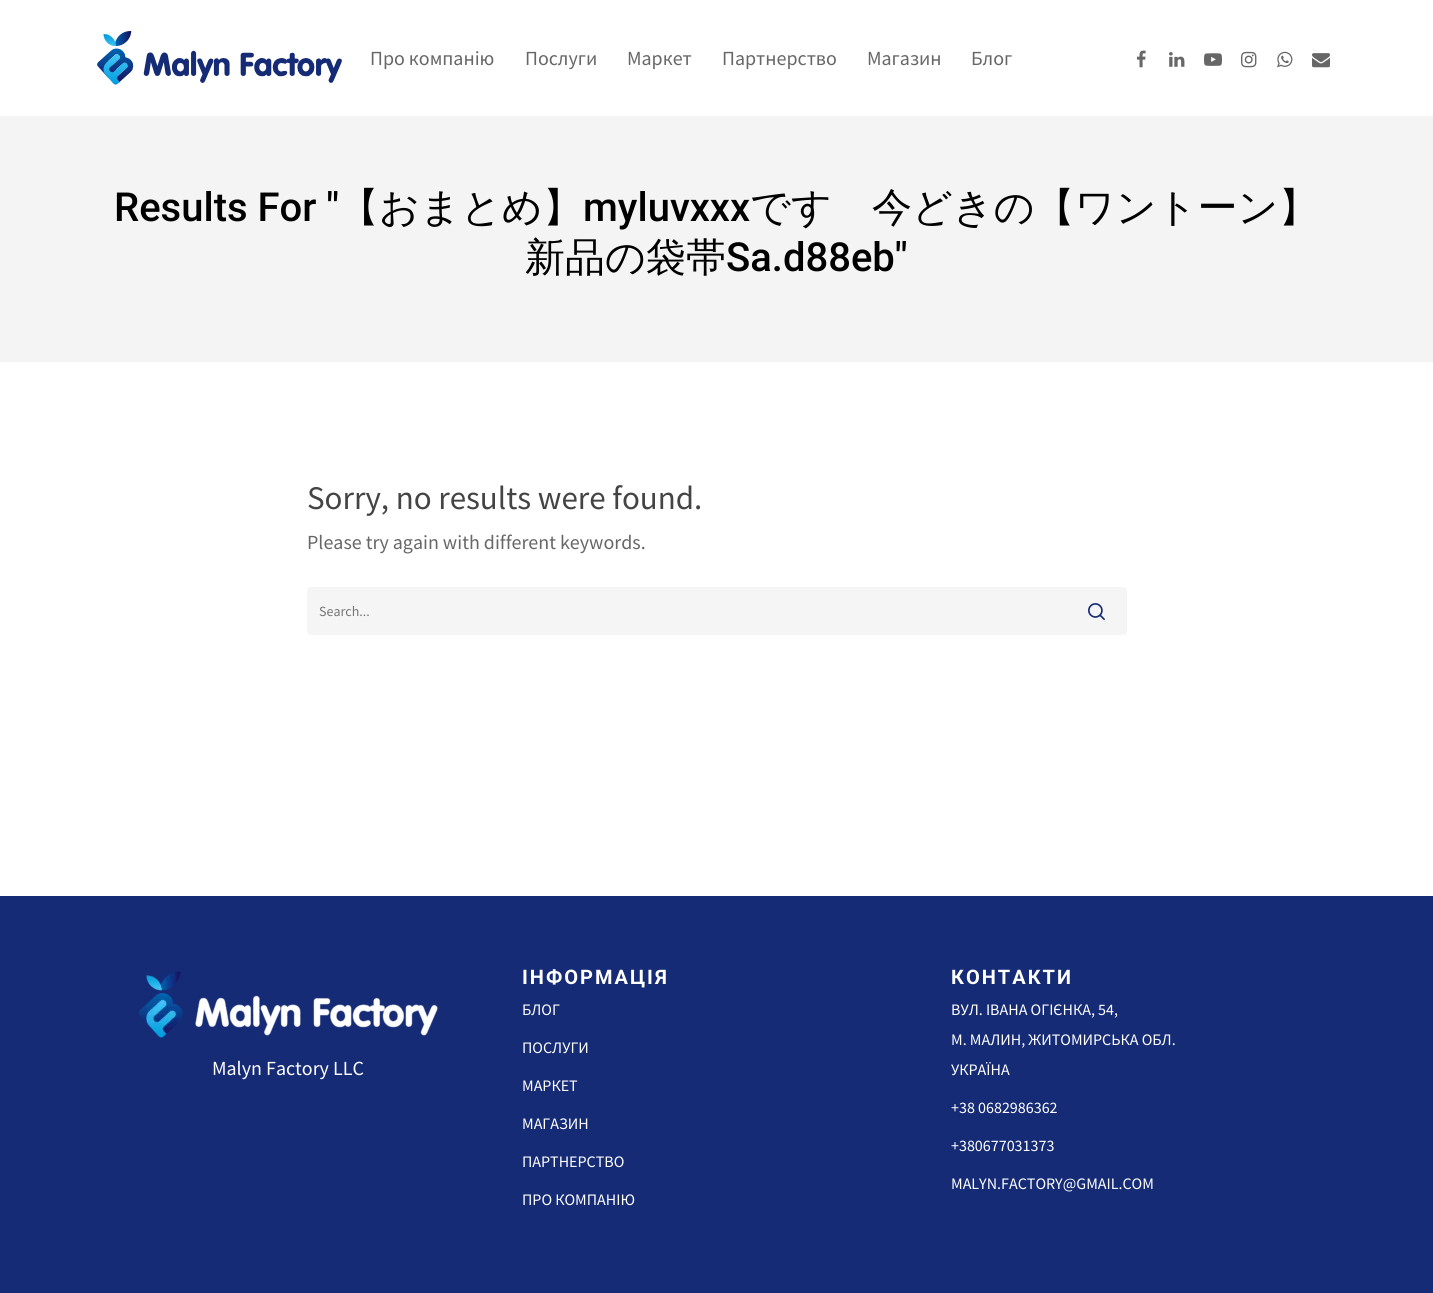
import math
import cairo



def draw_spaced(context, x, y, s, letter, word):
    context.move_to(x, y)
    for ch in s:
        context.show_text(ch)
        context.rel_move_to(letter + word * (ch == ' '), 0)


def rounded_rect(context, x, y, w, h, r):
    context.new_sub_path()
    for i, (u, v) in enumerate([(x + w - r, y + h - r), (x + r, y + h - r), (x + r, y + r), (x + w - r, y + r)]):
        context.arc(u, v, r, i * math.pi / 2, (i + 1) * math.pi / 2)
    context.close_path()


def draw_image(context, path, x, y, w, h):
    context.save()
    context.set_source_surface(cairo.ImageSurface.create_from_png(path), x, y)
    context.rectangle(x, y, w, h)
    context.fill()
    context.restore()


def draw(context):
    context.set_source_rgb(1, 1, 1)
    context.paint()
    draw_image(context, "images/1.png", 97, 31, 245, 54)
    draw_image(context, "images/2.png", 1136, 50, 10, 18)
    draw_image(context, "images/3.png", 1169, 52, 16, 15)
    draw_image(context, "images/4.png", 1204, 53, 18, 13)
    draw_image(context, "images/5.png", 1241, 51, 16, 17)
    draw_image(context, "images/6.png", 1277, 51, 16, 17)
    draw_image(context, "images/7.png", 1312, 53, 18, 15)
    context.set_source_rgb(244 / 255, 244 / 255, 244 / 255)
    context.rectangle(0, 116, 1433, 246)
    context.fill()
    context.set_source_rgb(245 / 255, 245 / 255, 245 / 255)
    rounded_rect(context, 307, 587, 820, 48, 4)
    context.fill()
    draw_image(context, "images/8.png", 1088, 603, 17, 17)
    context.set_source_rgb(22 / 255, 43 / 255, 117 / 255)
    context.rectangle(0, 896, 1433, 397)
    context.fill()
    draw_image(context, "images/9.png", 138, 971, 300, 67)
    context.select_font_face("Source Sans Pro")
    context.set_font_size(20)
    context.set_source_rgb(103 / 255, 103 / 255, 103 / 255)
    context.move_to(370, 65)
    context.show_text("Про компанію")
    context.move_to(525, 65)
    context.show_text("Послуги")
    context.move_to(627, 65)
    context.show_text("Маркет")
    context.move_to(722, 65)
    context.show_text("Партнерство")
    context.move_to(867, 65)
    context.show_text("Магазин")
    context.move_to(971, 65)
    context.show_text("Блог")
    context.select_font_face("Roboto Medium")
    context.set_font_size(40)
    context.set_source_rgb(0, 0, 0)
    context.move_to(114, 221)
    context.show_text("Results For \"")
    context.select_font_face("WenQuanYi Zen Hei Medium")
    context.move_to(339, 221)
    context.show_text("【おまとめ】")
    context.select_font_face("Roboto Medium")
    context.move_to(583, 221)
    context.show_text("myluvxxx")
    context.select_font_face("WenQuanYi Zen Hei Medium")
    context.move_to(750, 221)
    context.show_text("です　今どきの【ワントーン】")
    context.move_to(525, 271)
    context.show_text("新品の袋帯")
    context.select_font_face("Roboto Medium")
    context.move_to(726, 271)
    context.show_text("Sa.d88eb\"")
    context.select_font_face("Source Sans Pro")
    context.set_font_size(33)
    context.set_source_rgb(68 / 255, 68 / 255, 68 / 255)
    context.move_to(307, 509)
    context.show_text("Sorry, no results were found.")
    context.set_font_size(20)
    context.set_source_rgb(103 / 255, 103 / 255, 103 / 255)
    context.move_to(307, 549)
    context.show_text("Please try again with different keywords.")
    context.set_font_size(14)
    context.set_source_rgb(117 / 255, 117 / 255, 117 / 255)
    context.move_to(319, 616)
    context.show_text("Search...")
    context.set_font_size(20)
    context.set_source_rgb(1, 1, 1)
    context.move_to(212, 1075)
    context.show_text("Malyn Factory LLC")
    context.select_font_face("Roboto", cairo.FontSlant.NORMAL, cairo.FontWeight.BOLD)
    draw_spaced(context, 522, 984, "ІНФОРМАЦІЯ", 2, 0)
    context.select_font_face("Source Sans Pro")
    context.set_font_size(16)
    context.move_to(522, 1015)
    context.show_text("БЛОГ")
    context.move_to(522, 1053)
    context.show_text("ПОСЛУГИ")
    context.move_to(522, 1091)
    context.show_text("МАРКЕТ")
    context.move_to(522, 1129)
    context.show_text("МАГАЗИН")
    context.move_to(522, 1167)
    context.show_text("ПАРТНЕРСТВО")
    context.move_to(522, 1205)
    context.show_text("ПРО КОМПАНІЮ")
    context.select_font_face("Roboto", cairo.FontSlant.NORMAL, cairo.FontWeight.BOLD)
    context.set_font_size(20)
    draw_spaced(context, 951, 984, "КОНТАКТИ", 2, 0)
    context.select_font_face("Source Sans Pro")
    context.set_font_size(16)
    context.move_to(951, 1015)
    context.show_text("ВУЛ. ІВАНА ОГІЄНКА, 54,")
    context.move_to(951, 1045)
    context.show_text("М. МАЛИН, ЖИТОМИРСЬКА ОБЛ.")
    context.move_to(951, 1075)
    context.show_text("УКРАЇНА")
    context.move_to(951, 1113)
    context.show_text("+38 0682986362")
    context.move_to(951, 1151)
    context.show_text("+380677031373")
    context.move_to(951, 1189)
    context.show_text("MALYN.FACTORY@GMAIL.COM")


surface = cairo.ImageSurface(cairo.Format.RGB24, 1433, 1293)
context = cairo.Context(surface)
options = cairo.FontOptions()
options.set_hint_metrics(cairo.HintMetrics.OFF)
options.set_hint_style(cairo.HintStyle.NONE)
context.set_font_options(options)
context.set_miter_limit(4)
draw(context)
surface.write_to_png("out.png")
